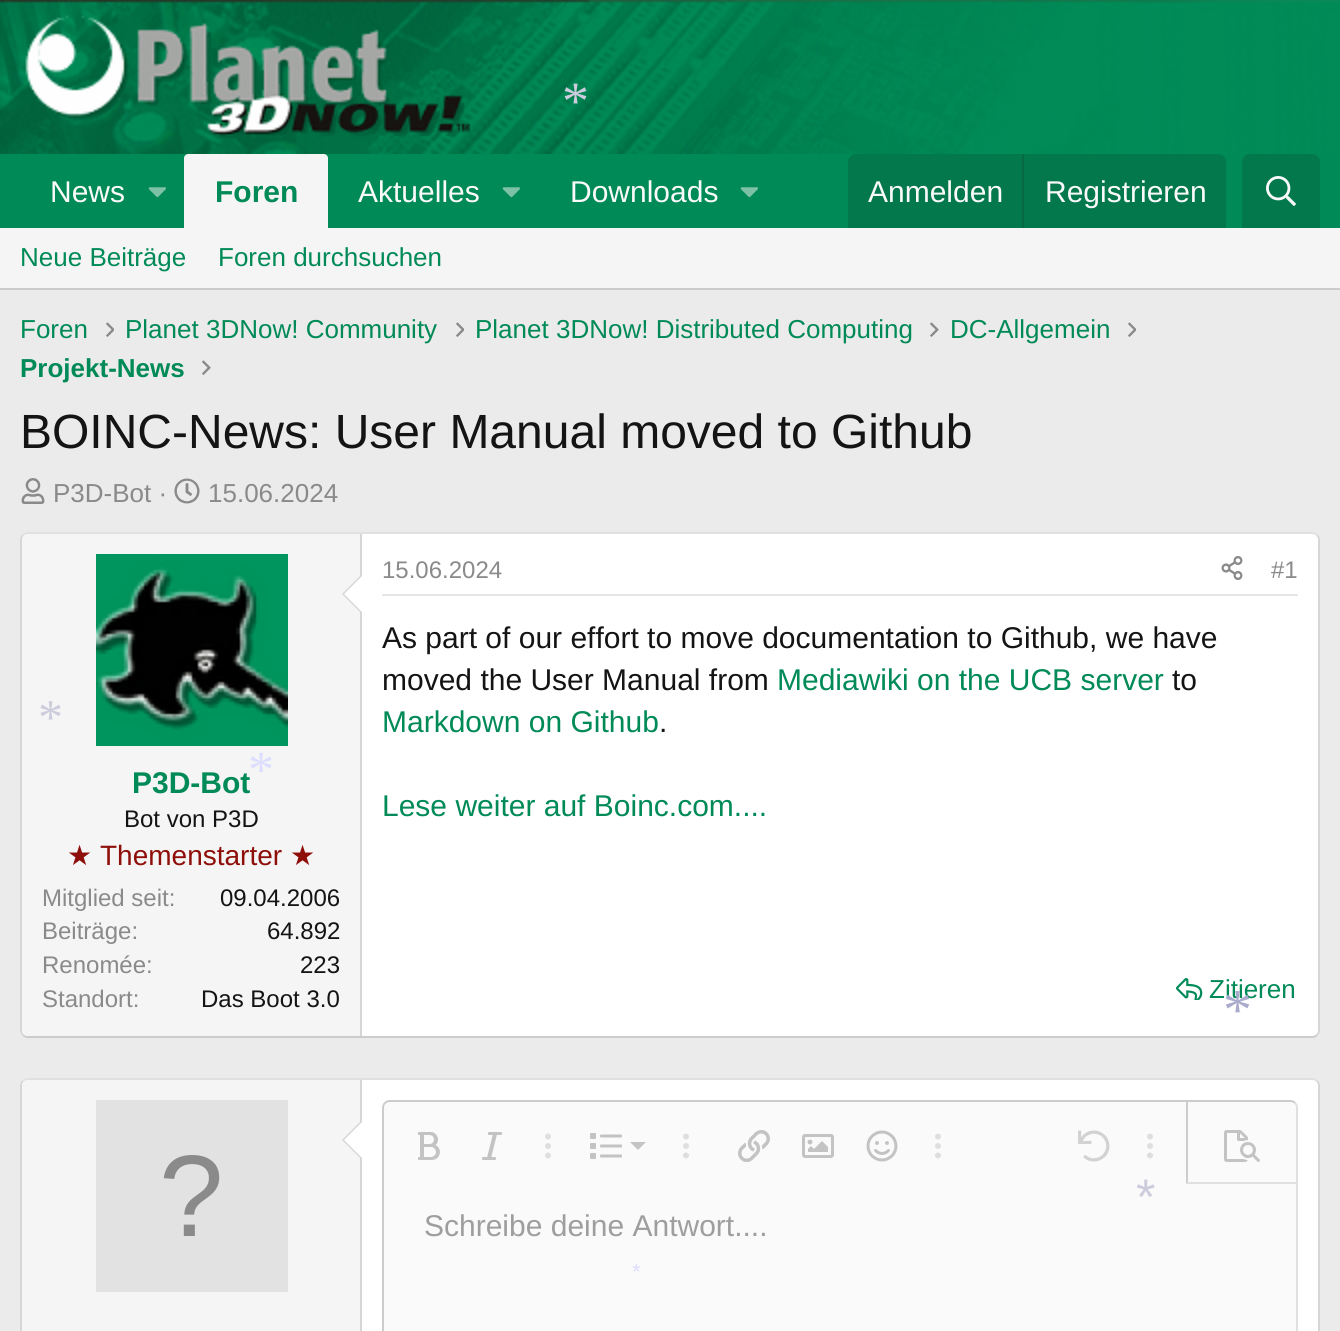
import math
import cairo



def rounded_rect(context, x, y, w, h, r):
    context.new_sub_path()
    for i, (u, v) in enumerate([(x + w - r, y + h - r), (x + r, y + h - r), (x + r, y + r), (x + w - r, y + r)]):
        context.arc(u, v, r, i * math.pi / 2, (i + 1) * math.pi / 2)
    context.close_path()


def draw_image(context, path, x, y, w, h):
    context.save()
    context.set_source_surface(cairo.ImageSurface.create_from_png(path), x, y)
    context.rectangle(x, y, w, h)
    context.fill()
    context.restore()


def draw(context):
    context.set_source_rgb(235 / 255, 235 / 255, 235 / 255)
    context.paint()
    context.set_source_rgb(0, 138 / 255, 87 / 255)
    context.rectangle(0, 0, 1340, 228)
    context.fill()
    draw_image(context, "images/1.png", 0, 0, 1340, 154)
    draw_image(context, "images/2.png", 25, 15, 446, 124)
    draw_image(context, "images/3.png", 148, 187, 18, 11)
    context.set_source_rgb(245 / 255, 245 / 255, 245 / 255)
    context.new_path()
    context.move_to(188, 154)
    context.line_to(324, 154)
    context.curve_to(326, 154, 328, 156, 328, 158)
    context.line_to(328, 228)
    context.line_to(184, 228)
    context.line_to(184, 158)
    context.curve_to(184, 156, 186, 154, 188, 154)
    context.close_path()
    context.fill()
    draw_image(context, "images/3.png", 502, 187, 18, 11)
    draw_image(context, "images/3.png", 740, 187, 18, 11)
    context.set_source_rgb(3 / 255, 120 / 255, 77 / 255)
    context.new_path()
    context.move_to(856, 154)
    context.line_to(1218, 154)
    context.curve_to(1222.5, 154, 1226, 157.5, 1226, 162)
    context.line_to(1226, 228)
    context.line_to(848, 228)
    context.line_to(848, 162)
    context.curve_to(848, 157.5, 851.5, 154, 856, 154)
    context.close_path()
    context.fill()
    context.set_source_rgb(6 / 255, 105 / 255, 68 / 255)
    context.rectangle(1022, 154, 2, 74)
    context.fill()
    context.set_source_rgb(3 / 255, 120 / 255, 77 / 255)
    context.new_path()
    context.move_to(1250, 154)
    context.line_to(1312, 154)
    context.curve_to(1316.5, 154, 1320, 157.5, 1320, 162)
    context.line_to(1320, 228)
    context.line_to(1242, 228)
    context.line_to(1242, 162)
    context.curve_to(1242, 157.5, 1245.5, 154, 1250, 154)
    context.close_path()
    context.fill()
    draw_image(context, "images/4.png", 1266, 176, 30, 30)
    context.set_source_rgb(245 / 255, 245 / 255, 245 / 255)
    context.rectangle(0, 228, 1340, 60)
    context.fill()
    context.set_source_rgb(204 / 255, 204 / 255, 204 / 255)
    context.rectangle(0, 288, 1340, 2)
    context.fill()
    draw_image(context, "images/5.png", 106, 322, 8, 15)
    draw_image(context, "images/5.png", 456, 322, 8, 15)
    draw_image(context, "images/6.png", 930, 322, 9, 15)
    draw_image(context, "images/5.png", 1128, 322, 8, 15)
    draw_image(context, "images/6.png", 202, 360, 9, 15)
    draw_image(context, "images/7.png", 21, 478, 24, 26)
    draw_image(context, "images/8.png", 174, 478, 26, 26)
    context.set_source_rgb(1, 1, 1)
    rounded_rect(context, 20, 532, 1300, 506, 8)
    context.fill()
    context.new_path()
    context.move_to(23, 535)
    context.curve_to(24.5, 533.5, 26, 533, 28, 533)
    context.line_to(1312, 533)
    context.curve_to(1314, 533, 1315.5, 533.5, 1317, 535)
    context.set_source_rgb(224 / 255, 224 / 255, 224 / 255)
    context.stroke()
    context.new_path()
    context.move_to(1317, 535)
    context.curve_to(1318.5, 536.5, 1319, 538, 1319, 540)
    context.line_to(1319, 1030)
    context.curve_to(1319, 1032, 1318.5, 1033.5, 1317, 1035)
    context.set_source_rgb(214 / 255, 214 / 255, 214 / 255)
    context.stroke()
    context.new_path()
    context.move_to(1317, 1035)
    context.curve_to(1315.5, 1036.5, 1314, 1037, 1312, 1037)
    context.line_to(28, 1037)
    context.curve_to(26, 1037, 24.5, 1036.5, 23, 1035)
    context.set_source_rgb(204 / 255, 204 / 255, 204 / 255)
    context.stroke()
    context.new_path()
    context.move_to(23, 1035)
    context.curve_to(21.5, 1033.5, 21, 1032, 21, 1030)
    context.line_to(21, 540)
    context.curve_to(21, 538, 21.5, 536.5, 23, 535)
    context.set_source_rgb(214 / 255, 214 / 255, 214 / 255)
    context.stroke()
    context.set_source_rgb(245 / 255, 245 / 255, 245 / 255)
    context.new_path()
    context.move_to(28, 534)
    context.line_to(362, 534)
    context.line_to(362, 1036)
    context.line_to(28, 1036)
    context.curve_to(24.5, 1036, 22, 1033.5, 22, 1030)
    context.line_to(22, 540)
    context.curve_to(22, 536.5, 24.5, 534, 28, 534)
    context.close_path()
    context.fill()
    context.set_source_rgb(214 / 255, 214 / 255, 214 / 255)
    context.rectangle(360, 534, 2, 502)
    context.fill()
    draw_image(context, "images/9.png", 96, 554, 192, 192)
    context.new_path()
    context.move_to(362, 574)
    context.line_to(362, 614)
    context.line_to(342, 594)
    context.close_path()
    context.fill()
    context.set_source_rgb(1, 1, 1)
    context.new_path()
    context.move_to(362, 576)
    context.line_to(362, 612)
    context.line_to(344, 594)
    context.close_path()
    context.fill()
    context.set_source_rgb(230 / 255, 230 / 255, 230 / 255)
    context.rectangle(382, 594, 916, 2)
    context.fill()
    draw_image(context, "images/10.png", 1221, 556, 22, 24)
    draw_image(context, "images/11.png", 1176, 978, 27, 22)
    context.set_source_rgb(1, 1, 1)
    rounded_rect(context, 20, 1078, 1300, 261, 8)
    context.fill()
    context.new_path()
    context.move_to(23, 1081)
    context.curve_to(24.5, 1079.5, 26, 1079, 28, 1079)
    context.line_to(1312, 1079)
    context.curve_to(1314, 1079, 1315.5, 1079.5, 1317, 1081)
    context.set_source_rgb(224 / 255, 224 / 255, 224 / 255)
    context.stroke()
    context.new_path()
    context.move_to(1317, 1081)
    context.curve_to(1318.5, 1082.5, 1319, 1084, 1319, 1086)
    context.line_to(1319, 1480)
    context.curve_to(1319, 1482, 1318.5, 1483.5, 1317, 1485)
    context.set_source_rgb(214 / 255, 214 / 255, 214 / 255)
    context.stroke()
    context.new_path()
    context.move_to(23, 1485)
    context.curve_to(21.5, 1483.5, 21, 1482, 21, 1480)
    context.line_to(21, 1086)
    context.curve_to(21, 1084, 21.5, 1082.5, 23, 1081)
    context.stroke()
    context.set_source_rgb(245 / 255, 245 / 255, 245 / 255)
    context.new_path()
    context.move_to(28, 1080)
    context.line_to(362, 1080)
    context.line_to(362, 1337)
    context.line_to(28, 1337)
    context.curve_to(24.5, 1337, 22, 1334.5, 22, 1331)
    context.line_to(22, 1086)
    context.curve_to(22, 1082.5, 24.5, 1080, 28, 1080)
    context.close_path()
    context.fill()
    context.set_source_rgb(214 / 255, 214 / 255, 214 / 255)
    context.rectangle(360, 1080, 2, 251)
    context.fill()
    context.new_path()
    context.move_to(362, 1120)
    context.line_to(362, 1160)
    context.line_to(342, 1140)
    context.close_path()
    context.fill()
    context.set_source_rgb(1, 1, 1)
    context.new_path()
    context.move_to(362, 1122)
    context.line_to(362, 1158)
    context.line_to(344, 1140)
    context.close_path()
    context.fill()
    context.set_source_rgb(226 / 255, 226 / 255, 226 / 255)
    context.rectangle(96, 1100, 192, 192)
    context.fill()
    context.set_source_rgb(250 / 255, 250 / 255, 250 / 255)
    rounded_rect(context, 384, 1102, 912, 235, 6)
    context.fill()
    context.new_path()
    context.move_to(1295, 1103)
    context.curve_to(1296.5, 1104.5, 1297, 1106, 1297, 1108)
    context.line_to(1297, 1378)
    context.curve_to(1297, 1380, 1296.5, 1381.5, 1295, 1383)
    context.curve_to(1293.5, 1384.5, 1292, 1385, 1290, 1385)
    context.line_to(390, 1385)
    context.curve_to(388, 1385, 386.5, 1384.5, 385, 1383)
    context.set_source_rgb(224 / 255, 224 / 255, 224 / 255)
    context.stroke()
    context.new_path()
    context.move_to(385, 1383)
    context.curve_to(383.5, 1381.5, 383, 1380, 383, 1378)
    context.line_to(383, 1108)
    context.curve_to(383, 1106, 383.5, 1104.5, 385, 1103)
    context.curve_to(386.5, 1101.5, 388, 1101, 390, 1101)
    context.line_to(1290, 1101)
    context.curve_to(1292, 1101, 1293.5, 1101.5, 1295, 1103)
    context.set_source_rgb(204 / 255, 204 / 255, 204 / 255)
    context.stroke()
    draw_image(context, "images/12.png", 418, 1132, 22, 28)
    draw_image(context, "images/13.png", 482, 1132, 20, 28)
    draw_image(context, "images/14.png", 545, 1133, 6, 26)
    draw_image(context, "images/15.png", 590, 1133, 32, 26)
    context.set_source_rgb(196 / 255, 196 / 255, 196 / 255)
    context.new_path()
    context.move_to(630, 1142)
    context.line_to(646, 1142)
    context.line_to(638, 1150)
    context.close_path()
    context.fill()
    draw_image(context, "images/14.png", 683, 1133, 6, 26)
    draw_image(context, "images/16.png", 738, 1130, 32, 32)
    draw_image(context, "images/17.png", 802, 1134, 32, 24)
    draw_image(context, "images/18.png", 866, 1130, 32, 32)
    draw_image(context, "images/14.png", 935, 1133, 6, 26)
    draw_image(context, "images/19.png", 1078, 1130, 32, 32)
    draw_image(context, "images/14.png", 1147, 1133, 6, 26)
    context.set_source_rgb(224 / 255, 224 / 255, 224 / 255)
    context.new_path()
    context.move_to(1296, 1184)
    context.line_to(1296, 1182)
    context.line_to(1188, 1182)
    context.line_to(1186, 1184)
    context.close_path()
    context.fill()
    context.set_source_rgb(204 / 255, 204 / 255, 204 / 255)
    context.new_path()
    context.move_to(1186, 1102)
    context.line_to(1188, 1102)
    context.line_to(1188, 1182)
    context.line_to(1186, 1184)
    context.close_path()
    context.fill()
    draw_image(context, "images/20.png", 1224, 1130, 36, 32)
    context.select_font_face("Liberation Serif")
    context.set_font_size(54)
    context.set_source_rgb(204 / 255, 204 / 255, 221 / 255)
    context.move_to(562, 119)
    context.show_text("*")
    context.select_font_face("Liberation Sans")
    context.set_font_size(30)
    context.set_source_rgb(250 / 255, 250 / 255, 250 / 255)
    context.move_to(50, 202)
    context.show_text("News")
    context.select_font_face("Liberation Sans", cairo.FontSlant.NORMAL, cairo.FontWeight.BOLD)
    context.set_source_rgb(0, 138 / 255, 87 / 255)
    context.move_to(215, 202)
    context.show_text("Foren")
    context.select_font_face("Liberation Sans")
    context.set_source_rgb(250 / 255, 250 / 255, 250 / 255)
    context.move_to(358, 202)
    context.show_text("Aktuelles")
    context.move_to(570, 202)
    context.show_text("Downloads")
    context.move_to(868, 202)
    context.show_text("Anmelden")
    context.move_to(1045, 202)
    context.show_text("Registrieren")
    context.set_font_size(26)
    context.set_source_rgb(0, 138 / 255, 87 / 255)
    context.move_to(20, 266)
    context.show_text("Neue Beiträge")
    context.move_to(218, 266)
    context.show_text("Foren durchsuchen")
    context.move_to(20, 338)
    context.show_text("Foren")
    context.move_to(125, 338)
    context.show_text("Planet 3DNow! Community")
    context.move_to(475, 338)
    context.show_text("Planet 3DNow! Distributed Computing")
    context.move_to(950, 338)
    context.show_text("DC-Allgemein")
    context.select_font_face("Liberation Sans", cairo.FontSlant.NORMAL, cairo.FontWeight.BOLD)
    context.move_to(20, 377)
    context.show_text("Projekt-News")
    context.select_font_face("Liberation Sans")
    context.set_font_size(48)
    context.set_source_rgb(20 / 255, 20 / 255, 20 / 255)
    context.move_to(20, 448)
    context.show_text("BOINC-News: User Manual moved to Github")
    context.set_font_size(26)
    context.set_source_rgb(138 / 255, 138 / 255, 138 / 255)
    context.move_to(53, 502)
    context.show_text("P3D-Bot ·")
    context.move_to(208, 502)
    context.show_text("15.06.2024")
    context.select_font_face("Liberation Sans", cairo.FontSlant.NORMAL, cairo.FontWeight.BOLD)
    context.set_font_size(30)
    context.set_source_rgb(0, 138 / 255, 87 / 255)
    context.move_to(132, 793)
    context.show_text("P3D-Bot")
    context.select_font_face("Liberation Sans")
    context.set_font_size(24)
    context.set_source_rgb(20 / 255, 20 / 255, 20 / 255)
    context.move_to(124, 827)
    context.show_text("Bot von P3D")
    context.select_font_face("DejaVu Sans")
    context.set_font_size(28)
    context.set_source_rgb(142 / 255, 14 / 255, 10 / 255)
    context.move_to(67, 865)
    context.show_text("★")
    context.select_font_face("Liberation Sans")
    context.move_to(100, 865)
    context.show_text("Themenstarter")
    context.select_font_face("DejaVu Sans")
    context.move_to(290, 865)
    context.show_text("★")
    context.select_font_face("Liberation Sans")
    context.set_font_size(24)
    context.set_source_rgb(138 / 255, 138 / 255, 138 / 255)
    context.move_to(42, 906)
    context.show_text("Mitglied seit:")
    context.set_source_rgb(20 / 255, 20 / 255, 20 / 255)
    context.move_to(220, 906)
    context.show_text("09.04.2006")
    context.set_source_rgb(138 / 255, 138 / 255, 138 / 255)
    context.move_to(42, 939)
    context.show_text("Beiträge:")
    context.set_source_rgb(20 / 255, 20 / 255, 20 / 255)
    context.move_to(267, 939)
    context.show_text("64.892")
    context.set_source_rgb(138 / 255, 138 / 255, 138 / 255)
    context.move_to(42, 973)
    context.show_text("Renomée:")
    context.set_source_rgb(20 / 255, 20 / 255, 20 / 255)
    context.move_to(300, 973)
    context.show_text("223")
    context.set_source_rgb(138 / 255, 138 / 255, 138 / 255)
    context.move_to(42, 1007)
    context.show_text("Standort:")
    context.set_source_rgb(20 / 255, 20 / 255, 20 / 255)
    context.move_to(201, 1007)
    context.show_text("Das Boot 3.0")
    context.set_source_rgb(138 / 255, 138 / 255, 138 / 255)
    context.move_to(382, 578)
    context.show_text("15.06.2024")
    context.move_to(1271, 578)
    context.show_text("#1")
    context.set_font_size(30)
    context.set_source_rgb(20 / 255, 20 / 255, 20 / 255)
    context.move_to(382, 648)
    context.show_text("As part of our effort to move documentation to Github, we have")
    context.move_to(382, 690)
    context.show_text("moved the User Manual from")
    context.set_source_rgb(0, 138 / 255, 87 / 255)
    context.move_to(777, 690)
    context.show_text("Mediawiki on the UCB server")
    context.set_source_rgb(20 / 255, 20 / 255, 20 / 255)
    context.move_to(1172, 690)
    context.show_text("to")
    context.set_source_rgb(0, 138 / 255, 87 / 255)
    context.move_to(382, 732)
    context.show_text("Markdown on Github")
    context.set_source_rgb(20 / 255, 20 / 255, 20 / 255)
    context.move_to(659, 732)
    context.show_text(".")
    context.set_source_rgb(0, 138 / 255, 87 / 255)
    context.move_to(382, 816)
    context.show_text("Lese weiter auf Boinc.com....")
    context.set_font_size(26)
    context.move_to(1209, 998)
    context.show_text("Zitieren")
    context.set_font_size(116)
    context.set_source_rgb(138 / 255, 138 / 255, 138 / 255)
    context.move_to(159, 1236)
    context.show_text("?")
    context.set_font_size(30)
    context.set_source_rgb(158 / 255, 158 / 255, 158 / 255)
    context.move_to(424, 1236)
    context.show_text("Schreibe deine Antwort....")
    context.select_font_face("Liberation Serif")
    context.set_font_size(50)
    context.set_source_rgb(204 / 255, 204 / 255, 221 / 255)
    context.move_to(38, 734)
    context.show_text("*")
    context.set_font_size(52)
    context.set_source_rgb(221 / 255, 221 / 255, 1)
    context.move_to(248, 787)
    context.show_text("*")
    context.set_font_size(58)
    context.set_source_rgb(170 / 255, 170 / 255, 204 / 255)
    context.move_to(1223, 1029)
    context.show_text("*")
    context.select_font_face("Liberation Sans")
    context.set_font_size(50)
    context.set_source_rgb(204 / 255, 204 / 255, 221 / 255)
    context.move_to(1136, 1214)
    context.show_text("*")
    context.set_font_size(22)
    context.set_source_rgb(221 / 255, 221 / 255, 1)
    context.move_to(632, 1279)
    context.show_text("*")


surface = cairo.ImageSurface(cairo.Format.RGB24, 1340, 1331)
context = cairo.Context(surface)
options = cairo.FontOptions()
options.set_hint_metrics(cairo.HintMetrics.OFF)
options.set_hint_style(cairo.HintStyle.NONE)
context.set_font_options(options)
context.set_miter_limit(4)
draw(context)
surface.write_to_png("out.png")
